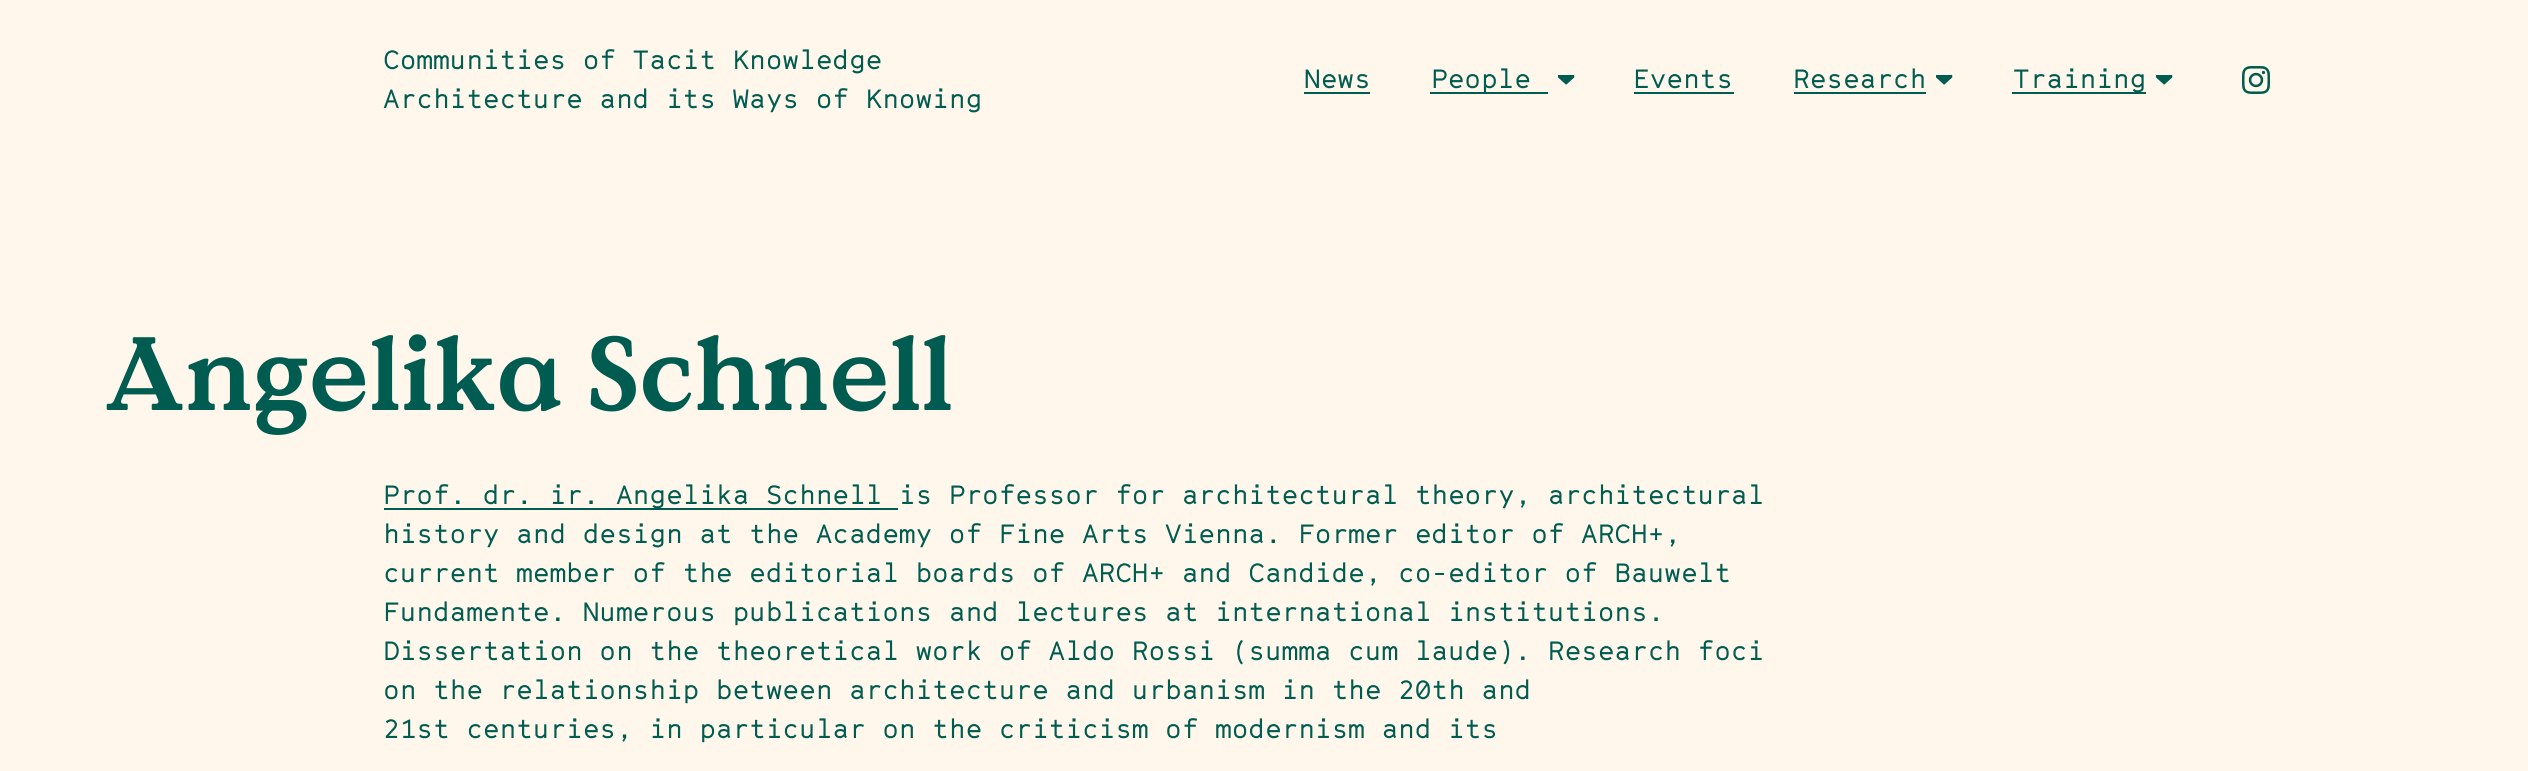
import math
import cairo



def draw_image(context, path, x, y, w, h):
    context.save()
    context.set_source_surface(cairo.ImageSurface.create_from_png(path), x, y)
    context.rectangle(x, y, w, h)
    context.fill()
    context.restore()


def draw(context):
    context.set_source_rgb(1, 247 / 255, 235 / 255)
    context.paint()
    context.set_source_rgb(0, 92 / 255, 80 / 255)
    context.rectangle(1304, 92, 66, 2)
    context.fill()
    context.rectangle(1430, 92, 118, 2)
    context.fill()
    draw_image(context, "images/1.png", 1558, 75, 17, 10)
    context.rectangle(1634, 92, 100, 2)
    context.fill()
    context.rectangle(1794, 92, 132, 2)
    context.fill()
    draw_image(context, "images/1.png", 1936, 75, 17, 10)
    context.rectangle(2012, 92, 134, 2)
    context.fill()
    draw_image(context, "images/1.png", 2156, 75, 17, 10)
    draw_image(context, "images/2.png", 2242, 66, 28, 28)
    context.rectangle(384, 508, 514, 2)
    context.fill()
    context.select_font_face("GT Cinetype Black")
    context.set_font_size(26)
    context.move_to(383, 69)
    context.show_text("Communities of Tacit Knowledge")
    context.move_to(383, 108)
    context.show_text("Architecture and its Ways of Knowing")
    context.move_to(1304, 88)
    context.show_text("News")
    context.move_to(1431, 88)
    context.show_text("People")
    context.move_to(1633, 88)
    context.show_text("Events")
    context.move_to(1793, 88)
    context.show_text("Research")
    context.move_to(2013, 88)
    context.show_text("Training")
    context.select_font_face("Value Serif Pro", cairo.FontSlant.NORMAL, cairo.FontWeight.BOLD)
    context.set_font_size(104)
    context.move_to(104, 410)
    context.show_text("Angelika Schnell")
    context.select_font_face("GT Cinetype Black")
    context.set_font_size(26)
    context.move_to(383, 504)
    context.show_text("Prof. dr. ir. Angelika Schnell is Professor for architectural theory, architectural")
    context.move_to(383, 543)
    context.show_text("history and design at the Academy of Fine Arts Vienna. Former editor of ARCH+,")
    context.move_to(383, 582)
    context.show_text("current member of the editorial boards of ARCH+ and Candide, co-editor of Bauwelt")
    context.move_to(383, 621)
    context.show_text("Fundamente. Numerous publications and lectures at international institutions.")
    context.move_to(383, 660)
    context.show_text("Dissertation on the theoretical work of Aldo Rossi (summa cum laude). Research foci")
    context.move_to(383, 699)
    context.show_text("on the relationship between architecture and urbanism in the 20th and")
    context.move_to(383, 738)
    context.show_text("21st centuries, in particular on the criticism of modernism and its")


surface = cairo.ImageSurface(cairo.Format.RGB24, 2528, 771)
context = cairo.Context(surface)
options = cairo.FontOptions()
options.set_hint_metrics(cairo.HintMetrics.OFF)
options.set_hint_style(cairo.HintStyle.NONE)
context.set_font_options(options)
context.set_miter_limit(4)
draw(context)
surface.write_to_png("out.png")
